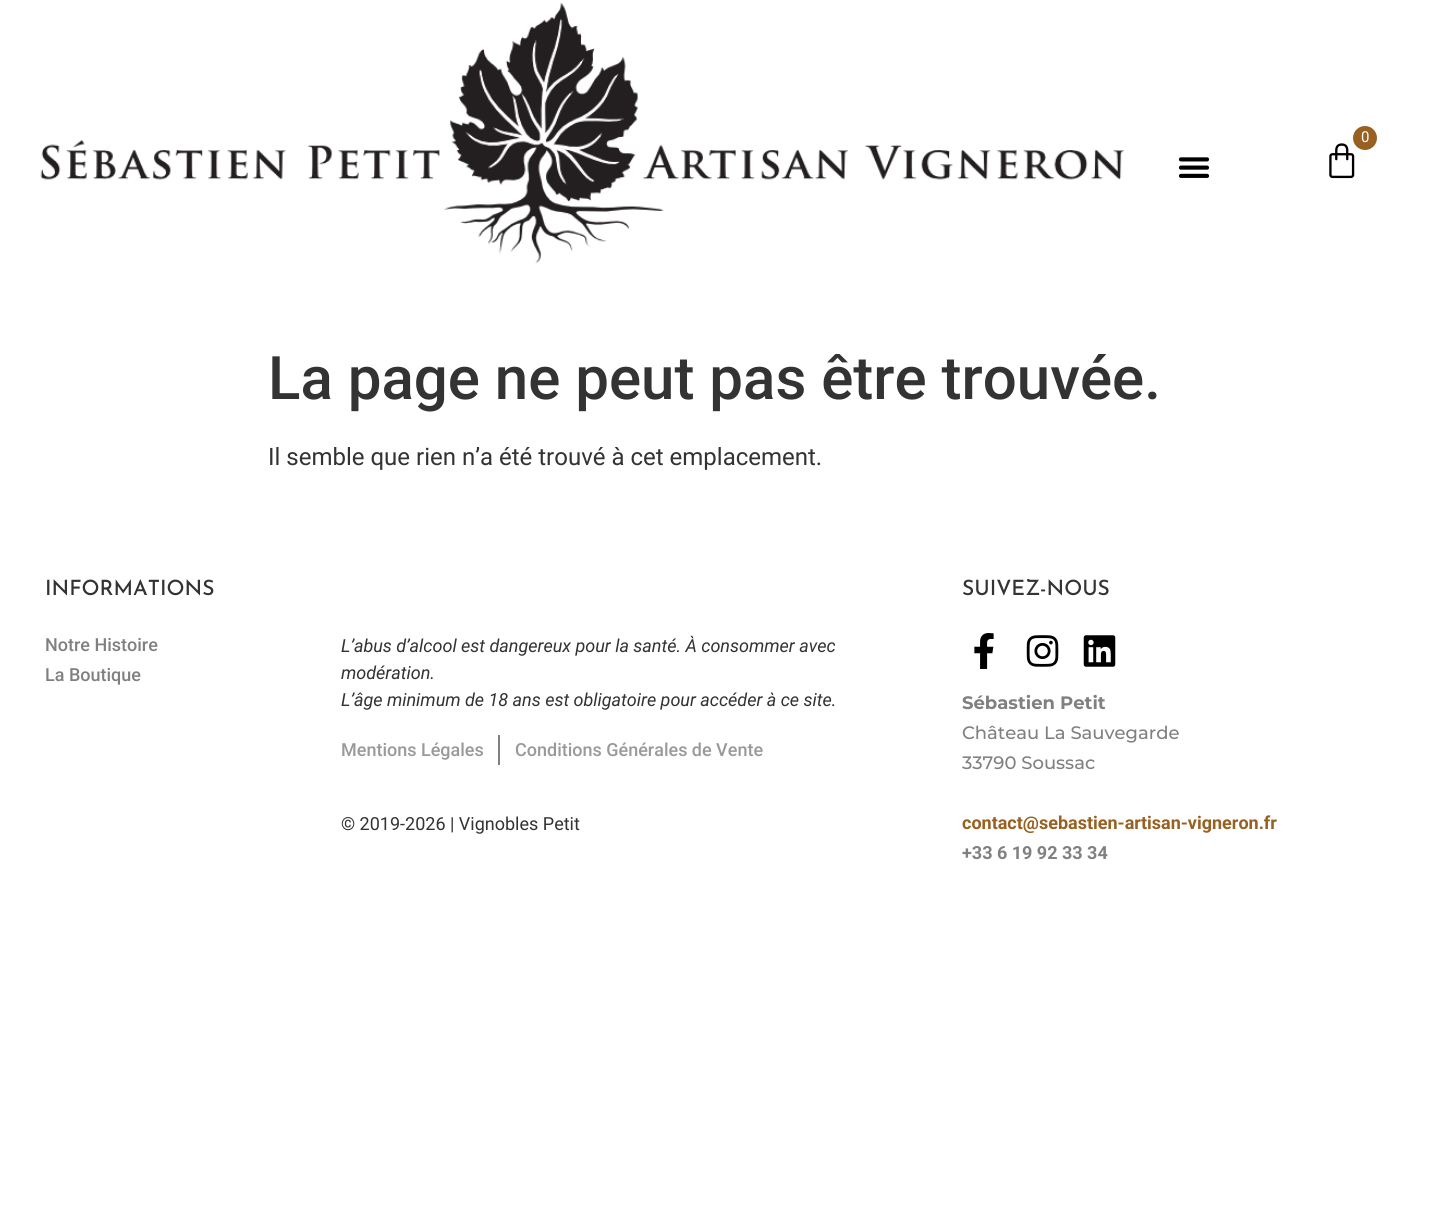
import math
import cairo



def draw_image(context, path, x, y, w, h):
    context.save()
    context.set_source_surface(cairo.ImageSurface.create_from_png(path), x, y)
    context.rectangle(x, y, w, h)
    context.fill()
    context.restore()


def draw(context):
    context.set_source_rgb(1, 1, 1)
    context.paint()
    draw_image(context, "images/1.png", 40, 2, 1085, 261)
    draw_image(context, "images/2.png", 1329, 143, 26, 36)
    context.set_source_rgb(152 / 255, 96 / 255, 33 / 255)
    context.arc(1365, 138, 12, 0, 2 * math.pi)
    context.fill()
    draw_image(context, "images/3.png", 1178, 157, 32, 21)
    context.set_source_rgb(128 / 255, 128 / 255, 128 / 255)
    context.rectangle(498, 735, 2, 30)
    context.fill()
    draw_image(context, "images/4.png", 974, 633, 20, 36)
    draw_image(context, "images/5.png", 1026, 635, 33, 32)
    draw_image(context, "images/6.png", 1083, 635, 33, 32)
    context.select_font_face("Roboto")
    context.set_font_size(15)
    context.set_source_rgb(1, 1, 1)
    context.move_to(1361, 142)
    context.show_text("0")
    context.select_font_face("Roboto Medium")
    context.set_font_size(60)
    context.set_source_rgb(51 / 255, 51 / 255, 51 / 255)
    context.move_to(268, 399)
    context.show_text("La page ne peut pas être trouvée.")
    context.select_font_face("Roboto")
    context.set_font_size(24)
    context.move_to(268, 465)
    context.show_text("Il semble que rien n’a été trouvé à cet emplacement.")
    context.select_font_face("Josefin Sans Medium")
    context.set_font_size(21)
    context.move_to(45, 595)
    context.show_text("INFORMATIONS")
    context.select_font_face("Roboto Medium")
    context.set_font_size(18)
    context.set_source_rgb(128 / 255, 128 / 255, 128 / 255)
    context.move_to(45, 651)
    context.show_text("Notre Histoire")
    context.move_to(45, 681)
    context.show_text("La Boutique")
    context.select_font_face("Roboto", cairo.FontSlant.ITALIC)
    context.set_source_rgb(51 / 255, 51 / 255, 51 / 255)
    context.move_to(341, 652)
    context.show_text("L’abus d’alcool est dangereux pour la santé. À consommer avec")
    context.move_to(341, 679)
    context.show_text("modération.")
    context.move_to(341, 706)
    context.show_text("L’âge minimum de 18 ans est obligatoire pour accéder à ce site.")
    context.select_font_face("Roboto Medium")
    context.set_source_rgb(153 / 255, 153 / 255, 153 / 255)
    context.move_to(341, 756)
    context.show_text("Mentions Légales")
    context.move_to(515, 756)
    context.show_text("Conditions Générales de Vente")
    context.select_font_face("Roboto")
    context.set_source_rgb(51 / 255, 51 / 255, 51 / 255)
    context.move_to(341, 830)
    context.show_text("© 2019-2026 | Vignobles Petit")
    context.select_font_face("Josefin Sans Medium")
    context.set_font_size(21)
    context.move_to(962, 595)
    context.show_text("SUIVEZ-NOUS")
    context.select_font_face("Montserrat", cairo.FontSlant.NORMAL, cairo.FontWeight.BOLD)
    context.set_font_size(18)
    context.set_source_rgb(128 / 255, 128 / 255, 128 / 255)
    context.move_to(962, 709)
    context.show_text("Sébastien Petit")
    context.select_font_face("Montserrat Medium")
    context.move_to(962, 739)
    context.show_text("Château La Sauvegarde")
    context.move_to(962, 769)
    context.show_text("33790 Soussac")
    context.select_font_face("Roboto", cairo.FontSlant.NORMAL, cairo.FontWeight.BOLD)
    context.set_source_rgb(152 / 255, 96 / 255, 33 / 255)
    context.move_to(962, 829)
    context.show_text("contact@sebastien-artisan-vigneron.fr")
    context.set_source_rgb(128 / 255, 128 / 255, 128 / 255)
    context.move_to(962, 859)
    context.show_text("+33 6 19 92 33 34")


surface = cairo.ImageSurface(cairo.Format.RGB24, 1435, 1226)
context = cairo.Context(surface)
options = cairo.FontOptions()
options.set_hint_metrics(cairo.HintMetrics.OFF)
options.set_hint_style(cairo.HintStyle.NONE)
context.set_font_options(options)
context.set_miter_limit(4)
draw(context)
surface.write_to_png("out.png")
